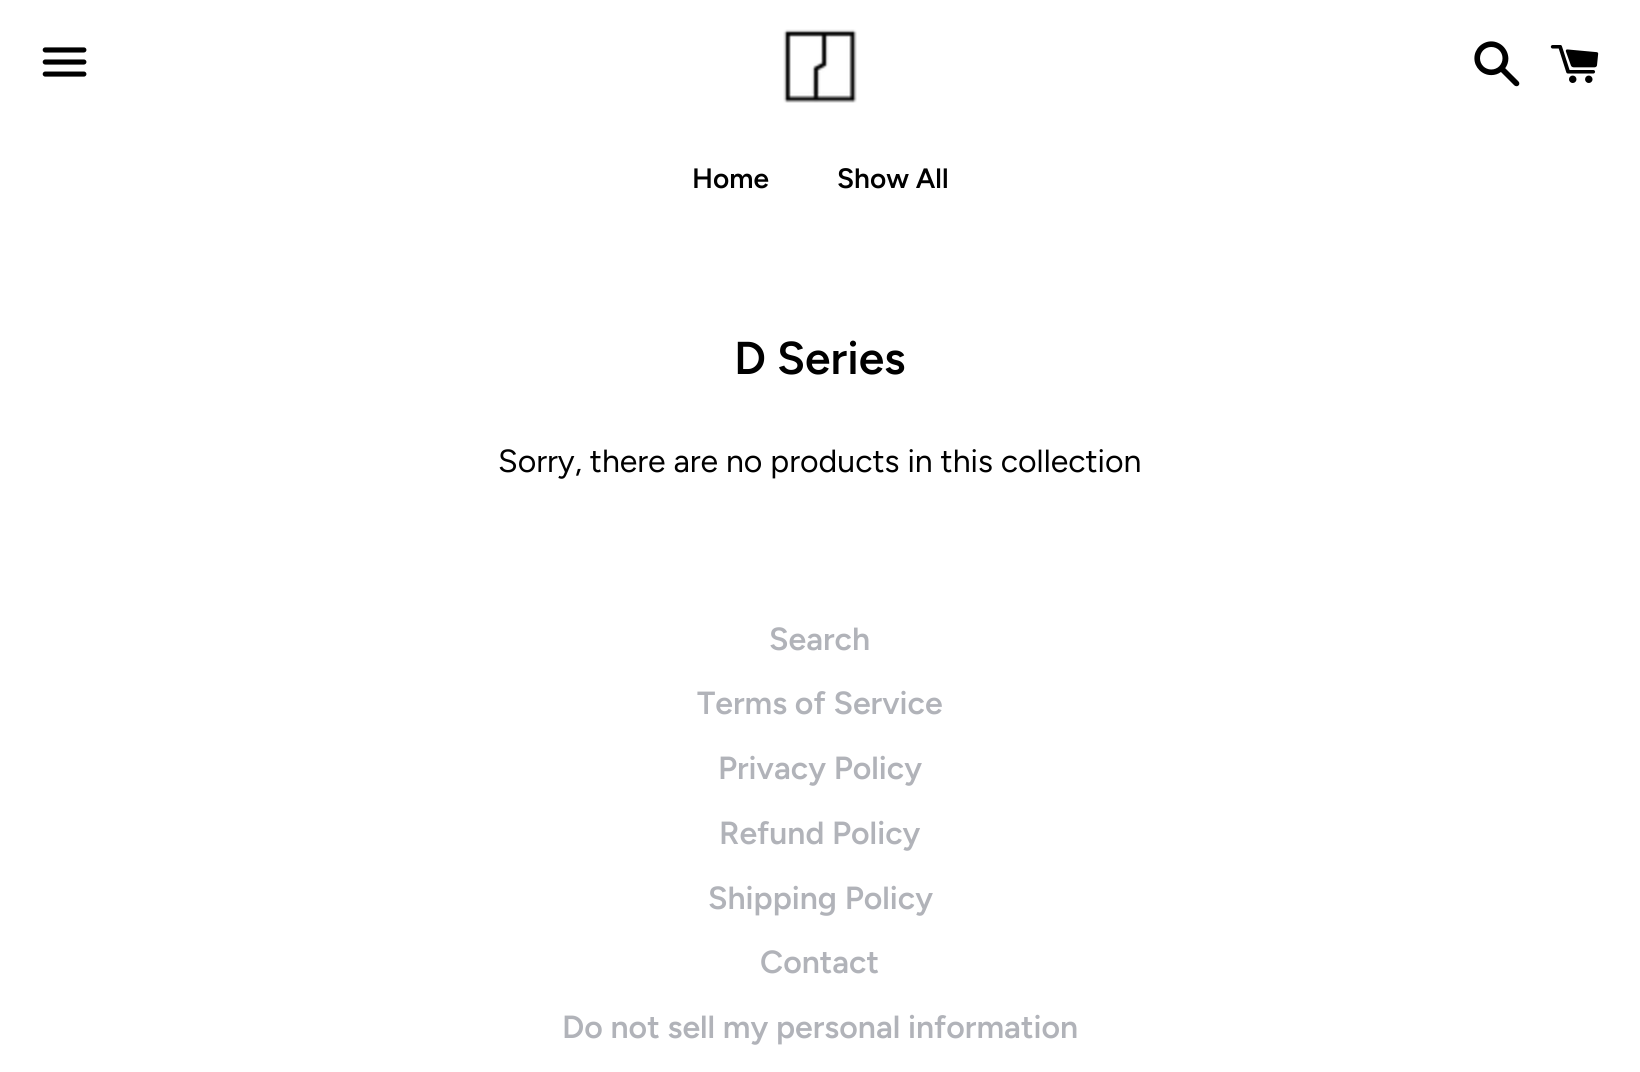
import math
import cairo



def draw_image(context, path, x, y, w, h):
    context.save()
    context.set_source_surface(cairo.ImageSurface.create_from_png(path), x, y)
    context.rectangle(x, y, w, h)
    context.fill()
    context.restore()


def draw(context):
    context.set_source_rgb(1, 1, 1)
    context.paint()
    draw_image(context, "images/1.png", 42, 47, 45, 30)
    draw_image(context, "images/2.png", 783, 29, 74, 74)
    draw_image(context, "images/3.png", 1474, 41, 46, 46)
    draw_image(context, "images/4.png", 1550, 45, 49, 38)
    context.select_font_face("Figtree SemiBold")
    context.set_font_size(28)
    context.set_source_rgb(0, 0, 0)
    context.move_to(692, 188)
    context.show_text("Home")
    context.move_to(837, 188)
    context.show_text("Show All")
    context.set_font_size(46)
    context.move_to(734, 374)
    context.show_text("D Series")
    context.select_font_face("Figtree")
    context.set_font_size(32)
    context.move_to(498, 472)
    context.show_text("Sorry, there are no products in this collection")
    context.select_font_face("Figtree SemiBold")
    context.set_source_rgb(177 / 255, 179 / 255, 185 / 255)
    context.move_to(769, 650)
    context.show_text("Search")
    context.move_to(697, 714)
    context.show_text("Terms of Service")
    context.move_to(718, 779)
    context.show_text("Privacy Policy")
    context.move_to(719, 844)
    context.show_text("Refund Policy")
    context.move_to(708, 909)
    context.show_text("Shipping Policy")
    context.move_to(760, 973)
    context.show_text("Contact")
    context.move_to(562, 1038)
    context.show_text("Do not sell my personal information")


surface = cairo.ImageSurface(cairo.Format.RGB24, 1640, 1072)
context = cairo.Context(surface)
options = cairo.FontOptions()
options.set_hint_metrics(cairo.HintMetrics.OFF)
options.set_hint_style(cairo.HintStyle.NONE)
context.set_font_options(options)
context.set_miter_limit(4)
draw(context)
surface.write_to_png("out.png")
